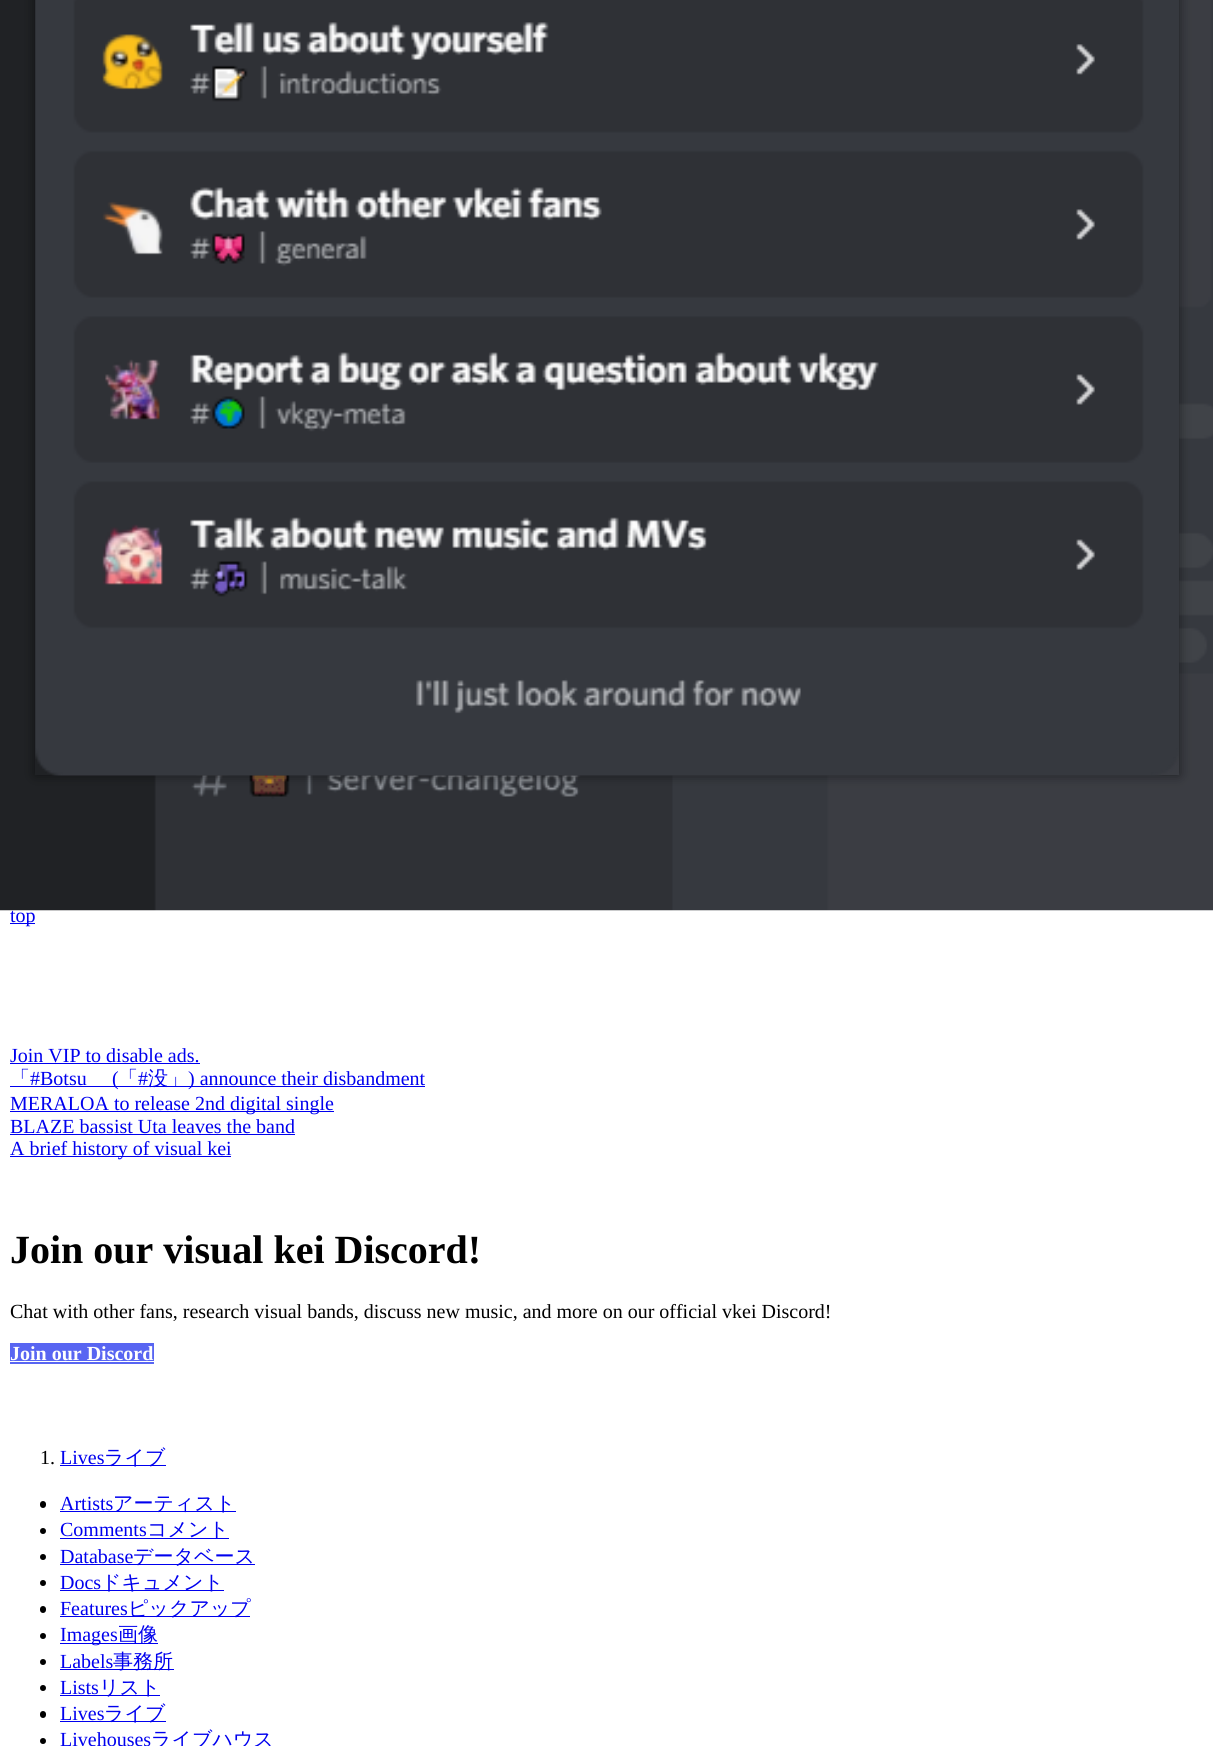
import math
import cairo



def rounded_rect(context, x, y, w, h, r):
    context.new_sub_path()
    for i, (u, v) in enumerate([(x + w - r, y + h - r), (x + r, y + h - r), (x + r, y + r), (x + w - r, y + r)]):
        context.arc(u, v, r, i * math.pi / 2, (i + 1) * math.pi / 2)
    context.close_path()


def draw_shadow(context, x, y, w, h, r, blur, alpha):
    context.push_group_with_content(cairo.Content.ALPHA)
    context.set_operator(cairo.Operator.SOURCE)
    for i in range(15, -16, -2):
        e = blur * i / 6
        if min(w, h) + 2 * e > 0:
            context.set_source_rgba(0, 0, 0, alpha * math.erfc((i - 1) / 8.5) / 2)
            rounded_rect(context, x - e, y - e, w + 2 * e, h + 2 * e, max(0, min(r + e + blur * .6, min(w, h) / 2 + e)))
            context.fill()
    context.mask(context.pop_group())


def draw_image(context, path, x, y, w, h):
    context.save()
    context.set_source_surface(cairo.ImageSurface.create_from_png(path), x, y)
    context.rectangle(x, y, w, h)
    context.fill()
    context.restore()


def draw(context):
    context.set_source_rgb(1, 1, 1)
    context.paint()
    context.set_source_rgb(0, 0, 238 / 255)
    context.rectangle(10, 923, 25, 1)
    context.fill()
    context.rectangle(10, 1063, 190, 1)
    context.fill()
    context.rectangle(10, 1086, 415, 1)
    context.fill()
    context.rectangle(10, 1111, 324, 1)
    context.fill()
    context.rectangle(10, 1134, 285, 1)
    context.fill()
    context.rectangle(10, 1156, 221, 1)
    context.fill()
    context.set_source_rgb(88 / 255, 101 / 255, 242 / 255)
    context.rectangle(10, 1343, 144, 21)
    context.fill()
    context.set_source_rgb(1, 1, 1)
    context.rectangle(10, 1361, 144, 1)
    context.fill()
    context.set_source_rgb(0, 0, 238 / 255)
    context.rectangle(60, 1465, 106, 1)
    context.fill()
    context.set_source_rgb(0, 0, 0)
    rounded_rect(context, 40, 1501, 6, 7, 3)
    context.fill()
    context.set_source_rgb(0, 0, 238 / 255)
    context.rectangle(60, 1511, 176, 1)
    context.fill()
    context.set_source_rgb(0, 0, 0)
    context.arc(43, 1531, 3, 0, 2 * math.pi)
    context.fill()
    context.set_source_rgb(0, 0, 238 / 255)
    context.rectangle(60, 1538, 169, 1)
    context.fill()
    context.set_source_rgb(0, 0, 0)
    context.arc(43, 1557, 3, 0, 2 * math.pi)
    context.fill()
    context.set_source_rgb(0, 0, 238 / 255)
    context.rectangle(60, 1564, 195, 1)
    context.fill()
    context.set_source_rgb(0, 0, 0)
    context.arc(43, 1583, 3, 0, 2 * math.pi)
    context.fill()
    context.set_source_rgb(0, 0, 238 / 255)
    context.rectangle(60, 1590, 164, 1)
    context.fill()
    context.set_source_rgb(0, 0, 0)
    rounded_rect(context, 40, 1606, 6, 7, 3)
    context.fill()
    context.set_source_rgb(0, 0, 238 / 255)
    context.rectangle(60, 1616, 190, 1)
    context.fill()
    context.set_source_rgb(0, 0, 0)
    context.arc(43, 1636, 3, 0, 2 * math.pi)
    context.fill()
    context.set_source_rgb(0, 0, 238 / 255)
    context.rectangle(60, 1643, 98, 1)
    context.fill()
    context.set_source_rgb(0, 0, 0)
    context.arc(43, 1662, 3, 0, 2 * math.pi)
    context.fill()
    context.set_source_rgb(0, 0, 238 / 255)
    context.rectangle(60, 1669, 114, 1)
    context.fill()
    context.set_source_rgb(0, 0, 0)
    context.arc(43, 1688, 3, 0, 2 * math.pi)
    context.fill()
    context.set_source_rgb(0, 0, 238 / 255)
    context.rectangle(60, 1695, 100, 1)
    context.fill()
    context.set_source_rgb(0, 0, 0)
    rounded_rect(context, 40, 1711, 6, 7, 3)
    context.fill()
    context.set_source_rgb(0, 0, 238 / 255)
    context.rectangle(60, 1721, 106, 1)
    context.fill()
    context.set_source_rgb(0, 0, 0)
    context.arc(43, 1741, 3, 0, 2 * math.pi)
    context.fill()
    context.select_font_face("Liberation Serif")
    context.set_font_size(20)
    context.set_source_rgb(0, 0, 238 / 255)
    context.move_to(10, 922)
    context.show_text("top")
    context.move_to(10, 1062)
    context.show_text("Join VIP to disable ads.")
    context.select_font_face("WenQuanYi Zen Hei Medium")
    context.move_to(10, 1085)
    context.show_text("「")
    context.select_font_face("Liberation Serif")
    context.move_to(30, 1085)
    context.show_text("#Botsu")
    context.move_to(112, 1085)
    context.show_text("(")
    context.select_font_face("WenQuanYi Zen Hei Medium")
    context.move_to(118, 1085)
    context.show_text("「")
    context.select_font_face("Liberation Serif")
    context.move_to(138, 1085)
    context.show_text("#")
    context.select_font_face("WenQuanYi Zen Hei Medium")
    context.move_to(148, 1085)
    context.show_text("没」")
    context.select_font_face("Liberation Serif")
    context.move_to(188, 1085)
    context.show_text(") announce their disbandment")
    context.move_to(10, 1110)
    context.show_text("MERALOA to release 2nd digital single")
    context.move_to(10, 1133)
    context.show_text("BLAZE bassist Uta leaves the band")
    context.move_to(10, 1155)
    context.show_text("A brief history of visual kei")
    draw_image(context, "images/1.png", 0, 0, 1213, 911)
    context.save()
    context.set_fill_rule(cairo.FillRule.EVEN_ODD)
    context.new_path()
    context.move_to(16, 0)
    context.line_to(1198, 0)
    context.line_to(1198, 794)
    context.line_to(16, 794)
    context.close_path()
    context.move_to(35, -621)
    context.line_to(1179, -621)
    context.line_to(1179, 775)
    context.line_to(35, 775)
    context.close_path()
    context.clip()
    context.set_source_rgb(0, 0, 0)
    draw_shadow(context, 35, -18, 1144, 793, 0, 6, 0.5)
    context.restore()
    draw_image(context, "images/2.png", 35, 0, 1144, 776)
    context.select_font_face("Liberation Serif", cairo.FontSlant.NORMAL, cairo.FontWeight.BOLD)
    context.set_font_size(40)
    context.set_source_rgb(0, 0, 0)
    context.move_to(10, 1263)
    context.show_text("Join our visual kei Discord!")
    context.select_font_face("Liberation Serif")
    context.set_font_size(20)
    context.move_to(10, 1318)
    context.show_text("Chat with other fans, research visual bands, discuss new music, and more on our official vkei Discord!")
    context.select_font_face("Liberation Serif", cairo.FontSlant.NORMAL, cairo.FontWeight.BOLD)
    context.set_source_rgb(1, 1, 1)
    context.move_to(10, 1360)
    context.show_text("Join our Discord")
    context.select_font_face("Liberation Serif")
    context.set_source_rgb(0, 0, 0)
    context.move_to(40, 1464)
    context.show_text("1.")
    context.set_source_rgb(0, 0, 238 / 255)
    context.move_to(60, 1464)
    context.show_text("Lives")
    context.select_font_face("WenQuanYi Zen Hei Medium")
    context.move_to(104, 1464)
    context.show_text("ライブ")
    context.select_font_face("Liberation Serif")
    context.move_to(60, 1510)
    context.show_text("Artists")
    context.select_font_face("WenQuanYi Zen Hei Medium")
    context.move_to(113, 1510)
    context.show_text("アーティスト")
    context.select_font_face("Liberation Serif")
    context.move_to(60, 1536)
    context.show_text("Comments")
    context.select_font_face("WenQuanYi Zen Hei Medium")
    context.move_to(147, 1536)
    context.show_text("コメント")
    context.select_font_face("Liberation Serif")
    context.move_to(60, 1563)
    context.show_text("Database")
    context.select_font_face("WenQuanYi Zen Hei Medium")
    context.move_to(133, 1563)
    context.show_text("データベース")
    context.select_font_face("Liberation Serif")
    context.move_to(60, 1589)
    context.show_text("Docs")
    context.select_font_face("WenQuanYi Zen Hei Medium")
    context.move_to(101, 1589)
    context.show_text("ドキュメント")
    context.select_font_face("Liberation Serif")
    context.move_to(60, 1615)
    context.show_text("Features")
    context.select_font_face("WenQuanYi Zen Hei Medium")
    context.move_to(128, 1615)
    context.show_text("ピックアップ")
    context.select_font_face("Liberation Serif")
    context.move_to(60, 1641)
    context.show_text("Images")
    context.select_font_face("WenQuanYi Zen Hei Medium")
    context.move_to(118, 1641)
    context.show_text("画像")
    context.select_font_face("Liberation Serif")
    context.move_to(60, 1668)
    context.show_text("Labels")
    context.select_font_face("WenQuanYi Zen Hei Medium")
    context.move_to(113, 1668)
    context.show_text("事務所")
    context.select_font_face("Liberation Serif")
    context.move_to(60, 1694)
    context.show_text("Lists")
    context.select_font_face("WenQuanYi Zen Hei Medium")
    context.move_to(99, 1694)
    context.show_text("リスト")
    context.select_font_face("Liberation Serif")
    context.move_to(60, 1720)
    context.show_text("Lives")
    context.select_font_face("WenQuanYi Zen Hei Medium")
    context.move_to(104, 1720)
    context.show_text("ライブ")
    context.select_font_face("Liberation Serif")
    context.move_to(60, 1746)
    context.show_text("Livehouses")
    context.select_font_face("WenQuanYi Zen Hei Medium")
    context.move_to(151, 1746)
    context.show_text("ライブハウス")


surface = cairo.ImageSurface(cairo.Format.RGB24, 1213, 1746)
context = cairo.Context(surface)
options = cairo.FontOptions()
options.set_hint_metrics(cairo.HintMetrics.OFF)
options.set_hint_style(cairo.HintStyle.NONE)
context.set_font_options(options)
context.set_miter_limit(4)
draw(context)
surface.write_to_png("out.png")
